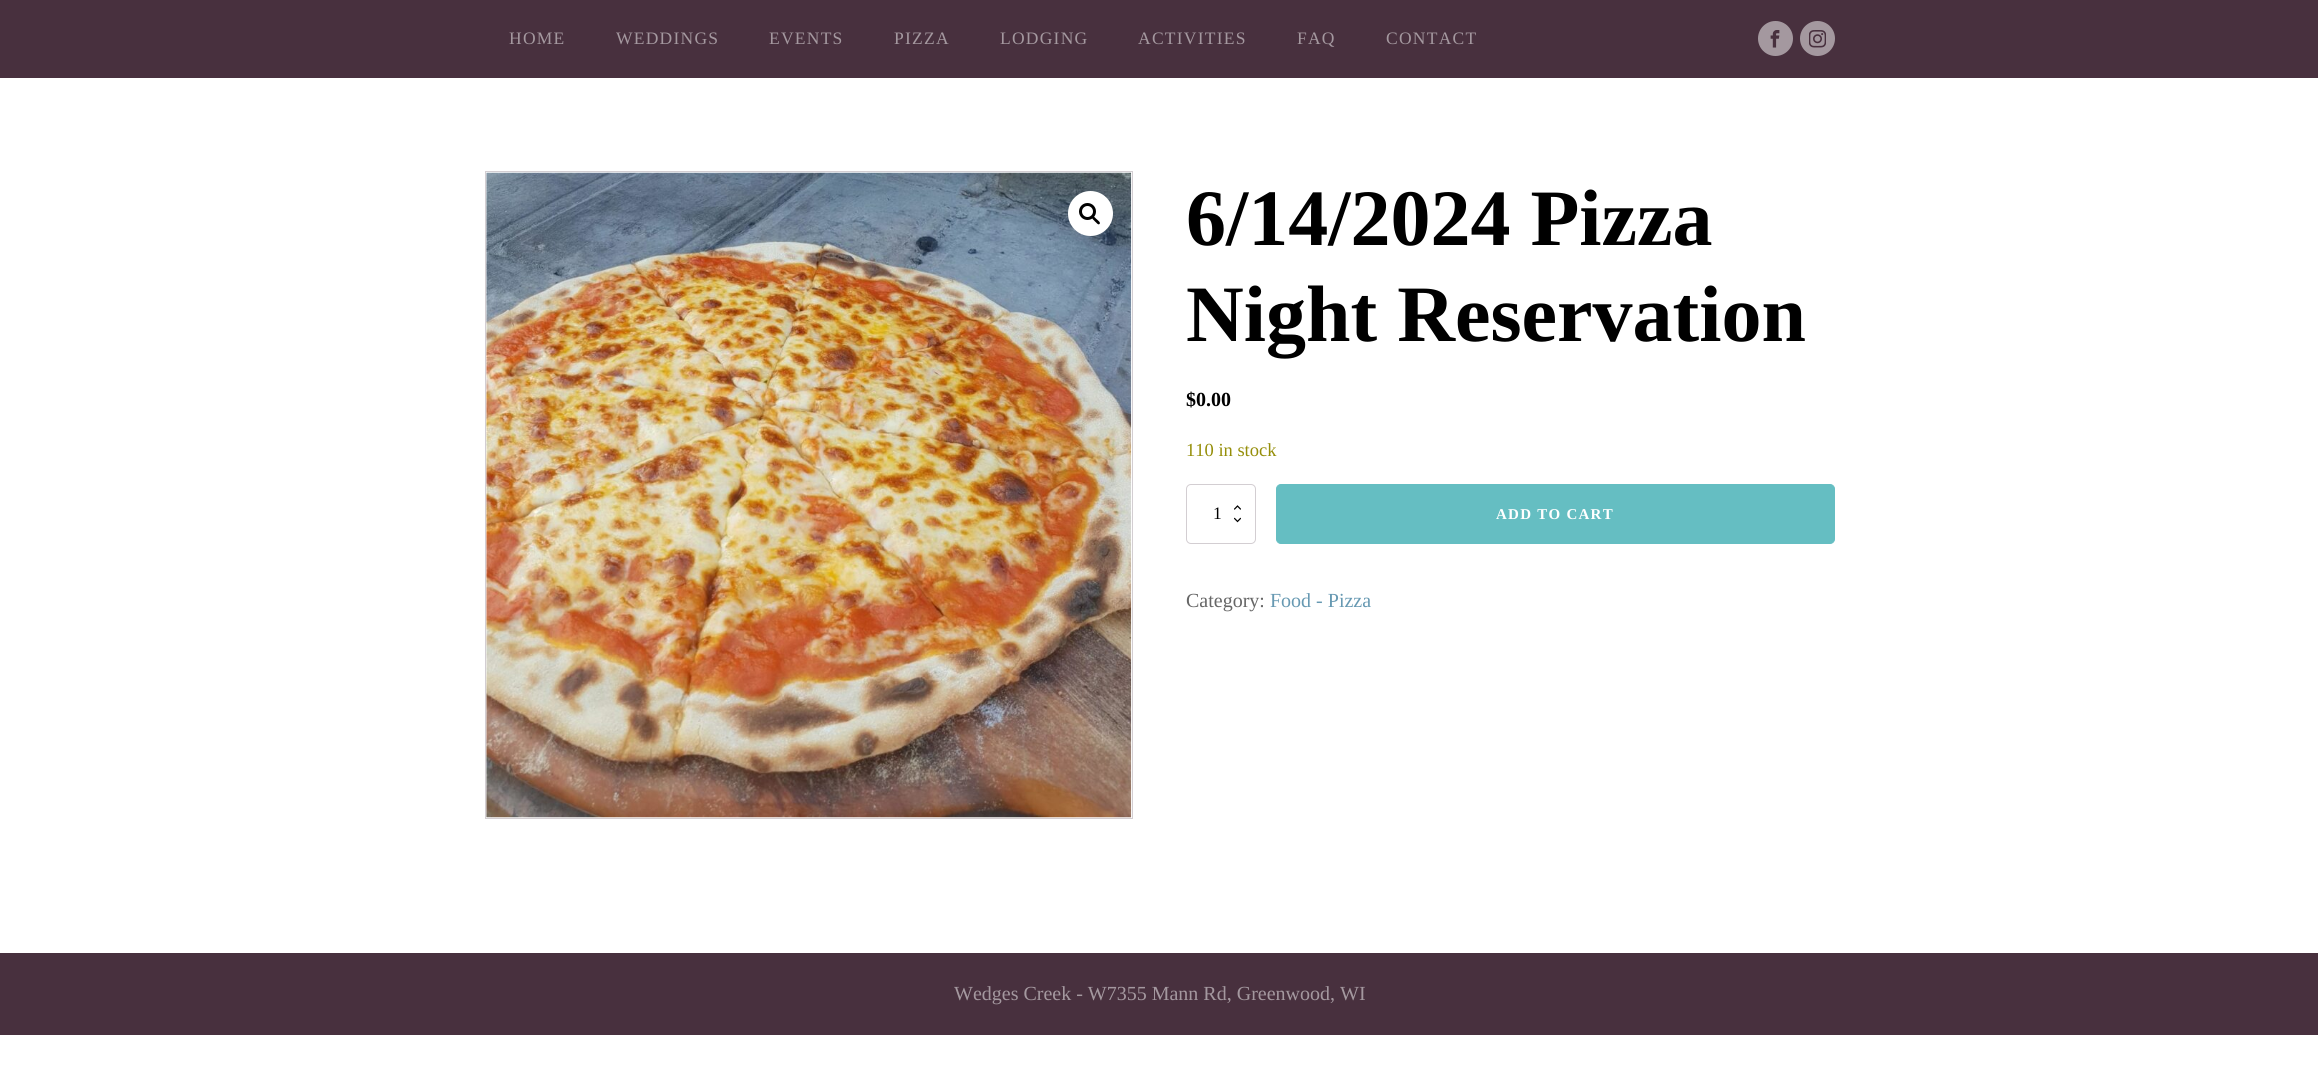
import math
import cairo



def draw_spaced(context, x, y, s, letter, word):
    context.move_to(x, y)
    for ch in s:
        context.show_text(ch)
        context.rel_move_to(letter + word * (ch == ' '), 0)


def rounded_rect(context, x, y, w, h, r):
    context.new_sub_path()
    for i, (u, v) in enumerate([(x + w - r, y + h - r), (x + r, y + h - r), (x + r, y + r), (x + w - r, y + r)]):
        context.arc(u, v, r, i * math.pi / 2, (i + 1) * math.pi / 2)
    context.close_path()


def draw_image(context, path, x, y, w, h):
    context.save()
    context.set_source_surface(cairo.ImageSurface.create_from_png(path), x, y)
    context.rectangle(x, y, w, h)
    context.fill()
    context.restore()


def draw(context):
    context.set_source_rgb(1, 1, 1)
    context.paint()
    context.set_source_rgb(72 / 255, 48 / 255, 62 / 255)
    context.rectangle(0, 0, 2318, 78)
    context.fill()
    context.set_source_rgb(164 / 255, 152 / 255, 159 / 255)
    context.arc(1775.5, 38.5, 17.5, 0, 2 * math.pi)
    context.fill()
    draw_image(context, "images/1.png", 1770, 30, 10, 18)
    context.arc(1817.5, 38.5, 17.5, 0, 2 * math.pi)
    context.fill()
    draw_image(context, "images/2.png", 1809, 30, 17, 18)
    context.rectangle(485.5, 171.5, 647, 647)
    context.set_source_rgb(211 / 255, 206 / 255, 210 / 255)
    context.set_line_width(1)
    context.stroke()
    draw_image(context, "images/3.png", 486, 172, 646, 646)
    context.set_source_rgb(1, 1, 1)
    context.arc(1090.5, 213.5, 22.5, 0, 2 * math.pi)
    context.fill()
    context.arc(1087.5, 211.5, 7, 0, 2 * math.pi)
    context.set_source_rgb(0, 0, 0)
    context.set_line_width(3)
    context.stroke()
    context.new_path()
    context.move_to(1092.5, 217)
    context.curve_to(1094, 215.5, 1096, 219, 1097, 219.5)
    context.curve_to(1098, 220.5, 1101, 222.5, 1099.5, 224)
    context.curve_to(1098, 225.5, 1096, 222, 1095, 221.5)
    context.curve_to(1094.5, 220.5, 1091, 218.5, 1092.5, 217)
    context.close_path()
    context.fill()
    draw_image(context, "images/4.png", 1234, 505, 7, 5)
    draw_image(context, "images/5.png", 1234, 517, 7, 6)
    rounded_rect(context, 1186.5, 484.5, 69, 59, 4.5)
    context.set_source_rgb(211 / 255, 206 / 255, 210 / 255)
    context.set_line_width(1)
    context.stroke()
    context.set_source_rgb(101 / 255, 190 / 255, 194 / 255)
    rounded_rect(context, 1276.5, 484.5, 558, 59, 4.5)
    context.fill_preserve()
    context.stroke()
    context.set_source_rgb(72 / 255, 48 / 255, 62 / 255)
    context.rectangle(0, 953, 2318, 82)
    context.fill()
    context.select_font_face("Liberation Serif")
    context.set_font_size(17.5)
    context.set_source_rgb(164 / 255, 152 / 255, 159 / 255)
    draw_spaced(context, 509, 44, "HOME", 1.25, 0)
    draw_spaced(context, 616, 44, "WEDDINGS", 1.25, 0)
    draw_spaced(context, 769, 44, "EVENTS", 1.25, 0)
    draw_spaced(context, 894, 44, "PIZZA", 1.25, 0)
    draw_spaced(context, 1000, 44, "LODGING", 1.25, 0)
    draw_spaced(context, 1138, 44, "ACTIVITIES", 1.25, 0)
    draw_spaced(context, 1297, 44, "FAQ", 1.25, 0)
    draw_spaced(context, 1386, 44, "CONTACT", 1.25, 0)
    context.select_font_face("Liberation Serif", cairo.FontSlant.NORMAL, cairo.FontWeight.BOLD)
    context.set_font_size(80)
    context.set_source_rgb(0, 0, 0)
    context.move_to(1186, 245)
    context.show_text("6/14/2024 Pizza")
    context.move_to(1186, 341)
    context.show_text("Night Reservation")
    context.set_font_size(20)
    context.move_to(1186, 406)
    context.show_text("$0.00")
    context.select_font_face("Liberation Serif")
    context.set_font_size(18.5)
    context.set_source_rgb(149 / 255, 142 / 255, 9 / 255)
    context.move_to(1186, 456)
    context.show_text("110 in stock")
    context.set_font_size(17.5)
    context.set_source_rgb(0, 0, 0)
    context.move_to(1213, 519)
    context.show_text("1")
    context.select_font_face("Liberation Serif", cairo.FontSlant.NORMAL, cairo.FontWeight.BOLD)
    context.set_font_size(15)
    context.set_source_rgb(1, 1, 1)
    draw_spaced(context, 1496, 519, "ADD TO CART", 1.25, 0)
    context.select_font_face("Liberation Serif")
    context.set_font_size(20)
    context.set_source_rgb(102 / 255, 102 / 255, 102 / 255)
    context.move_to(1186, 607)
    context.show_text("Category:")
    context.set_source_rgb(103 / 255, 153 / 255, 178 / 255)
    context.move_to(1270, 607)
    context.show_text("Food - Pizza")
    context.set_source_rgb(164 / 255, 152 / 255, 159 / 255)
    context.move_to(954, 1000)
    context.show_text("Wedges Creek - W7355 Mann Rd, Greenwood, WI")


surface = cairo.ImageSurface(cairo.Format.RGB24, 2318, 1082)
context = cairo.Context(surface)
options = cairo.FontOptions()
options.set_hint_metrics(cairo.HintMetrics.OFF)
options.set_hint_style(cairo.HintStyle.NONE)
context.set_font_options(options)
context.set_miter_limit(4)
draw(context)
surface.write_to_png("out.png")
